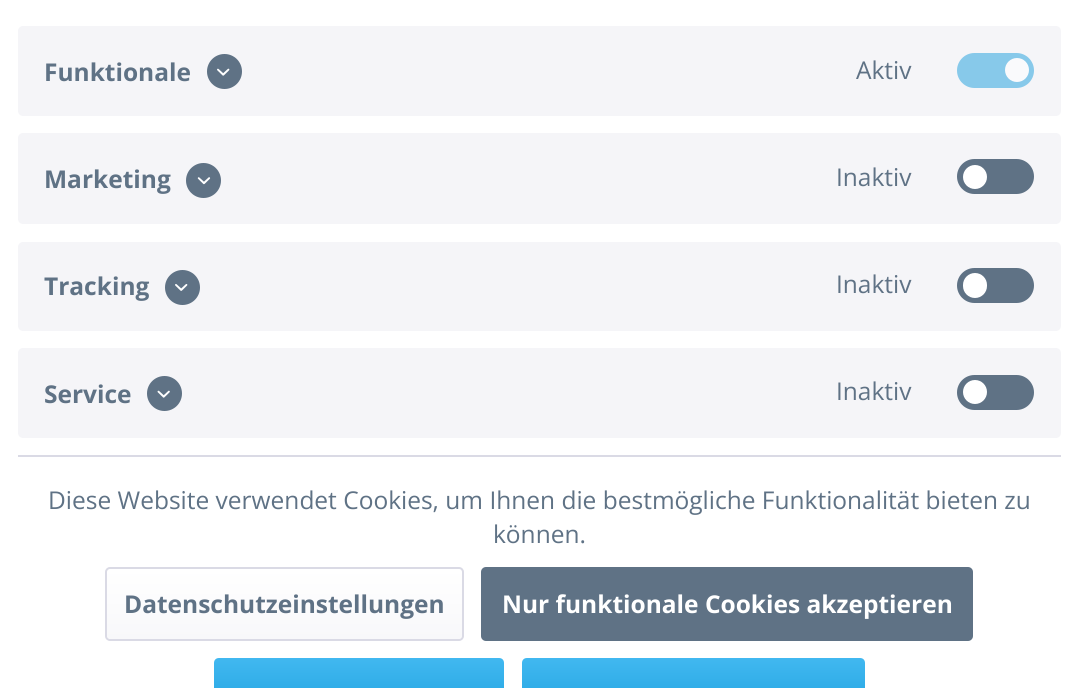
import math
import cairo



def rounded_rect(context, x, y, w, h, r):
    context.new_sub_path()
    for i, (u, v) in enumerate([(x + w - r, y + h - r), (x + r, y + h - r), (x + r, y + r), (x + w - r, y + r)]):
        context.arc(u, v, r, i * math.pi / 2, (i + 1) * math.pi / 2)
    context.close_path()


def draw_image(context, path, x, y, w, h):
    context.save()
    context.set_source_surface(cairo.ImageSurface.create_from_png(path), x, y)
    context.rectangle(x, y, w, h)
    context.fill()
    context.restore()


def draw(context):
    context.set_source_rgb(1, 1, 1)
    context.paint()
    context.set_source_rgb(218 / 255, 218 / 255, 229 / 255)
    context.rectangle(18, 455, 1043, 2)
    context.fill()
    context.set_source_rgb(245 / 255, 245 / 255, 248 / 255)
    rounded_rect(context, 18, 26, 1043, 90, 5)
    context.fill()
    context.set_source_rgb(95 / 255, 114 / 255, 133 / 255)
    context.arc(224.5, 71.5, 17.5, 0, 2 * math.pi)
    context.fill()
    draw_image(context, "images/1.png", 217, 68, 13, 8)
    context.set_source_rgb(135 / 255, 201 / 255, 234 / 255)
    rounded_rect(context, 957, 53, 77, 35, 17.5)
    context.fill()
    context.set_source_rgb(250 / 255, 250 / 255, 252 / 255)
    context.arc(1017, 70, 12, 0, 2 * math.pi)
    context.fill()
    context.set_source_rgb(245 / 255, 245 / 255, 248 / 255)
    rounded_rect(context, 18, 133, 1043, 91, 5)
    context.fill()
    context.set_source_rgb(95 / 255, 114 / 255, 133 / 255)
    context.arc(203.5, 180.5, 17.5, 0, 2 * math.pi)
    context.fill()
    draw_image(context, "images/2.png", 197, 177, 14, 8)
    rounded_rect(context, 957, 159, 77, 35, 17.5)
    context.fill()
    context.set_source_rgb(1, 1, 1)
    context.arc(975, 177, 12, 0, 2 * math.pi)
    context.fill()
    context.set_source_rgb(245 / 255, 245 / 255, 248 / 255)
    rounded_rect(context, 18, 242, 1043, 89, 5)
    context.fill()
    context.set_source_rgb(95 / 255, 114 / 255, 133 / 255)
    context.arc(182.5, 287.5, 17.5, 0, 2 * math.pi)
    context.fill()
    draw_image(context, "images/3.png", 175, 284, 13, 7)
    rounded_rect(context, 957, 268, 77, 35, 17.5)
    context.fill()
    context.set_source_rgb(1, 1, 1)
    rounded_rect(context, 963, 273, 24, 25, 12)
    context.fill()
    context.set_source_rgb(245 / 255, 245 / 255, 248 / 255)
    rounded_rect(context, 18, 348, 1043, 90, 5)
    context.fill()
    context.set_source_rgb(95 / 255, 114 / 255, 133 / 255)
    context.arc(164.5, 393.5, 17.5, 0, 2 * math.pi)
    context.fill()
    draw_image(context, "images/4.png", 157, 390, 13, 8)
    rounded_rect(context, 957, 375, 77, 35, 17.5)
    context.fill()
    context.set_source_rgb(1, 1, 1)
    context.arc(975, 392, 12, 0, 2 * math.pi)
    context.fill()
    gradient = cairo.LinearGradient(284, 569, 284, 639)
    gradient.add_color_stop_rgba(0, 1, 1, 1, 1)
    gradient.add_color_stop_rgba(1, 248 / 255, 248 / 255, 250 / 255, 1)
    context.set_source(gradient)
    rounded_rect(context, 107, 569, 355, 70, 4)
    context.fill()
    rounded_rect(context, 106, 568, 357, 72, 4)
    context.set_source_rgb(218 / 255, 218 / 255, 229 / 255)
    context.stroke()
    context.set_source_rgb(95 / 255, 114 / 255, 133 / 255)
    rounded_rect(context, 481, 567, 492, 74, 5)
    context.fill()
    gradient = cairo.LinearGradient(359, 658, 359, 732)
    gradient.add_color_stop_rgba(0, 65 / 255, 184 / 255, 240 / 255, 1)
    gradient.add_color_stop_rgba(1, 24 / 255, 157 / 255, 220 / 255, 1)
    context.set_source(gradient)
    context.new_path()
    context.move_to(219, 658)
    context.line_to(499, 658)
    context.curve_to(502, 658, 504, 660, 504, 663)
    context.line_to(504, 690)
    context.line_to(214, 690)
    context.line_to(214, 663)
    context.curve_to(214, 660, 216, 658, 219, 658)
    context.close_path()
    context.fill()
    gradient = cairo.LinearGradient(693, 658, 693, 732)
    gradient.add_color_stop_rgba(0, 65 / 255, 184 / 255, 240 / 255, 1)
    gradient.add_color_stop_rgba(1, 24 / 255, 157 / 255, 220 / 255, 1)
    context.set_source(gradient)
    context.new_path()
    context.move_to(527, 658)
    context.line_to(860, 658)
    context.curve_to(863, 658, 865, 660, 865, 663)
    context.line_to(865, 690)
    context.line_to(522, 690)
    context.line_to(522, 663)
    context.curve_to(522, 660, 524, 658, 527, 658)
    context.close_path()
    context.fill()
    context.select_font_face("Open Sans", cairo.FontSlant.NORMAL, cairo.FontWeight.BOLD)
    context.set_font_size(24.5)
    context.set_source_rgb(95 / 255, 114 / 255, 133 / 255)
    context.move_to(44, 81)
    context.show_text("Funktionale")
    context.select_font_face("Open Sans")
    context.move_to(856, 79)
    context.show_text("Aktiv")
    context.select_font_face("Open Sans", cairo.FontSlant.NORMAL, cairo.FontWeight.BOLD)
    context.move_to(44, 188)
    context.show_text("Marketing")
    context.select_font_face("Open Sans")
    context.move_to(836, 186)
    context.show_text("Inaktiv")
    context.select_font_face("Open Sans", cairo.FontSlant.NORMAL, cairo.FontWeight.BOLD)
    context.move_to(44, 295)
    context.show_text("Tracking")
    context.select_font_face("Open Sans")
    context.move_to(836, 293)
    context.show_text("Inaktiv")
    context.select_font_face("Open Sans", cairo.FontSlant.NORMAL, cairo.FontWeight.BOLD)
    context.move_to(44, 403)
    context.show_text("Service")
    context.select_font_face("Open Sans")
    context.move_to(836, 400)
    context.show_text("Inaktiv")
    context.move_to(48, 509)
    context.show_text("Diese Website verwendet Cookies, um Ihnen die bestmögliche Funktionalität bieten zu")
    context.move_to(493, 543)
    context.show_text("können.")
    context.select_font_face("Open Sans", cairo.FontSlant.NORMAL, cairo.FontWeight.BOLD)
    context.move_to(124, 613)
    context.show_text("Datenschutzeinstellungen")
    context.set_source_rgb(1, 1, 1)
    context.move_to(502, 613)
    context.show_text("Nur funktionale Cookies akzeptieren")


surface = cairo.ImageSurface(cairo.Format.RGB24, 1078, 688)
context = cairo.Context(surface)
options = cairo.FontOptions()
options.set_hint_metrics(cairo.HintMetrics.OFF)
options.set_hint_style(cairo.HintStyle.NONE)
context.set_font_options(options)
context.set_miter_limit(4)
draw(context)
surface.write_to_png("out.png")
